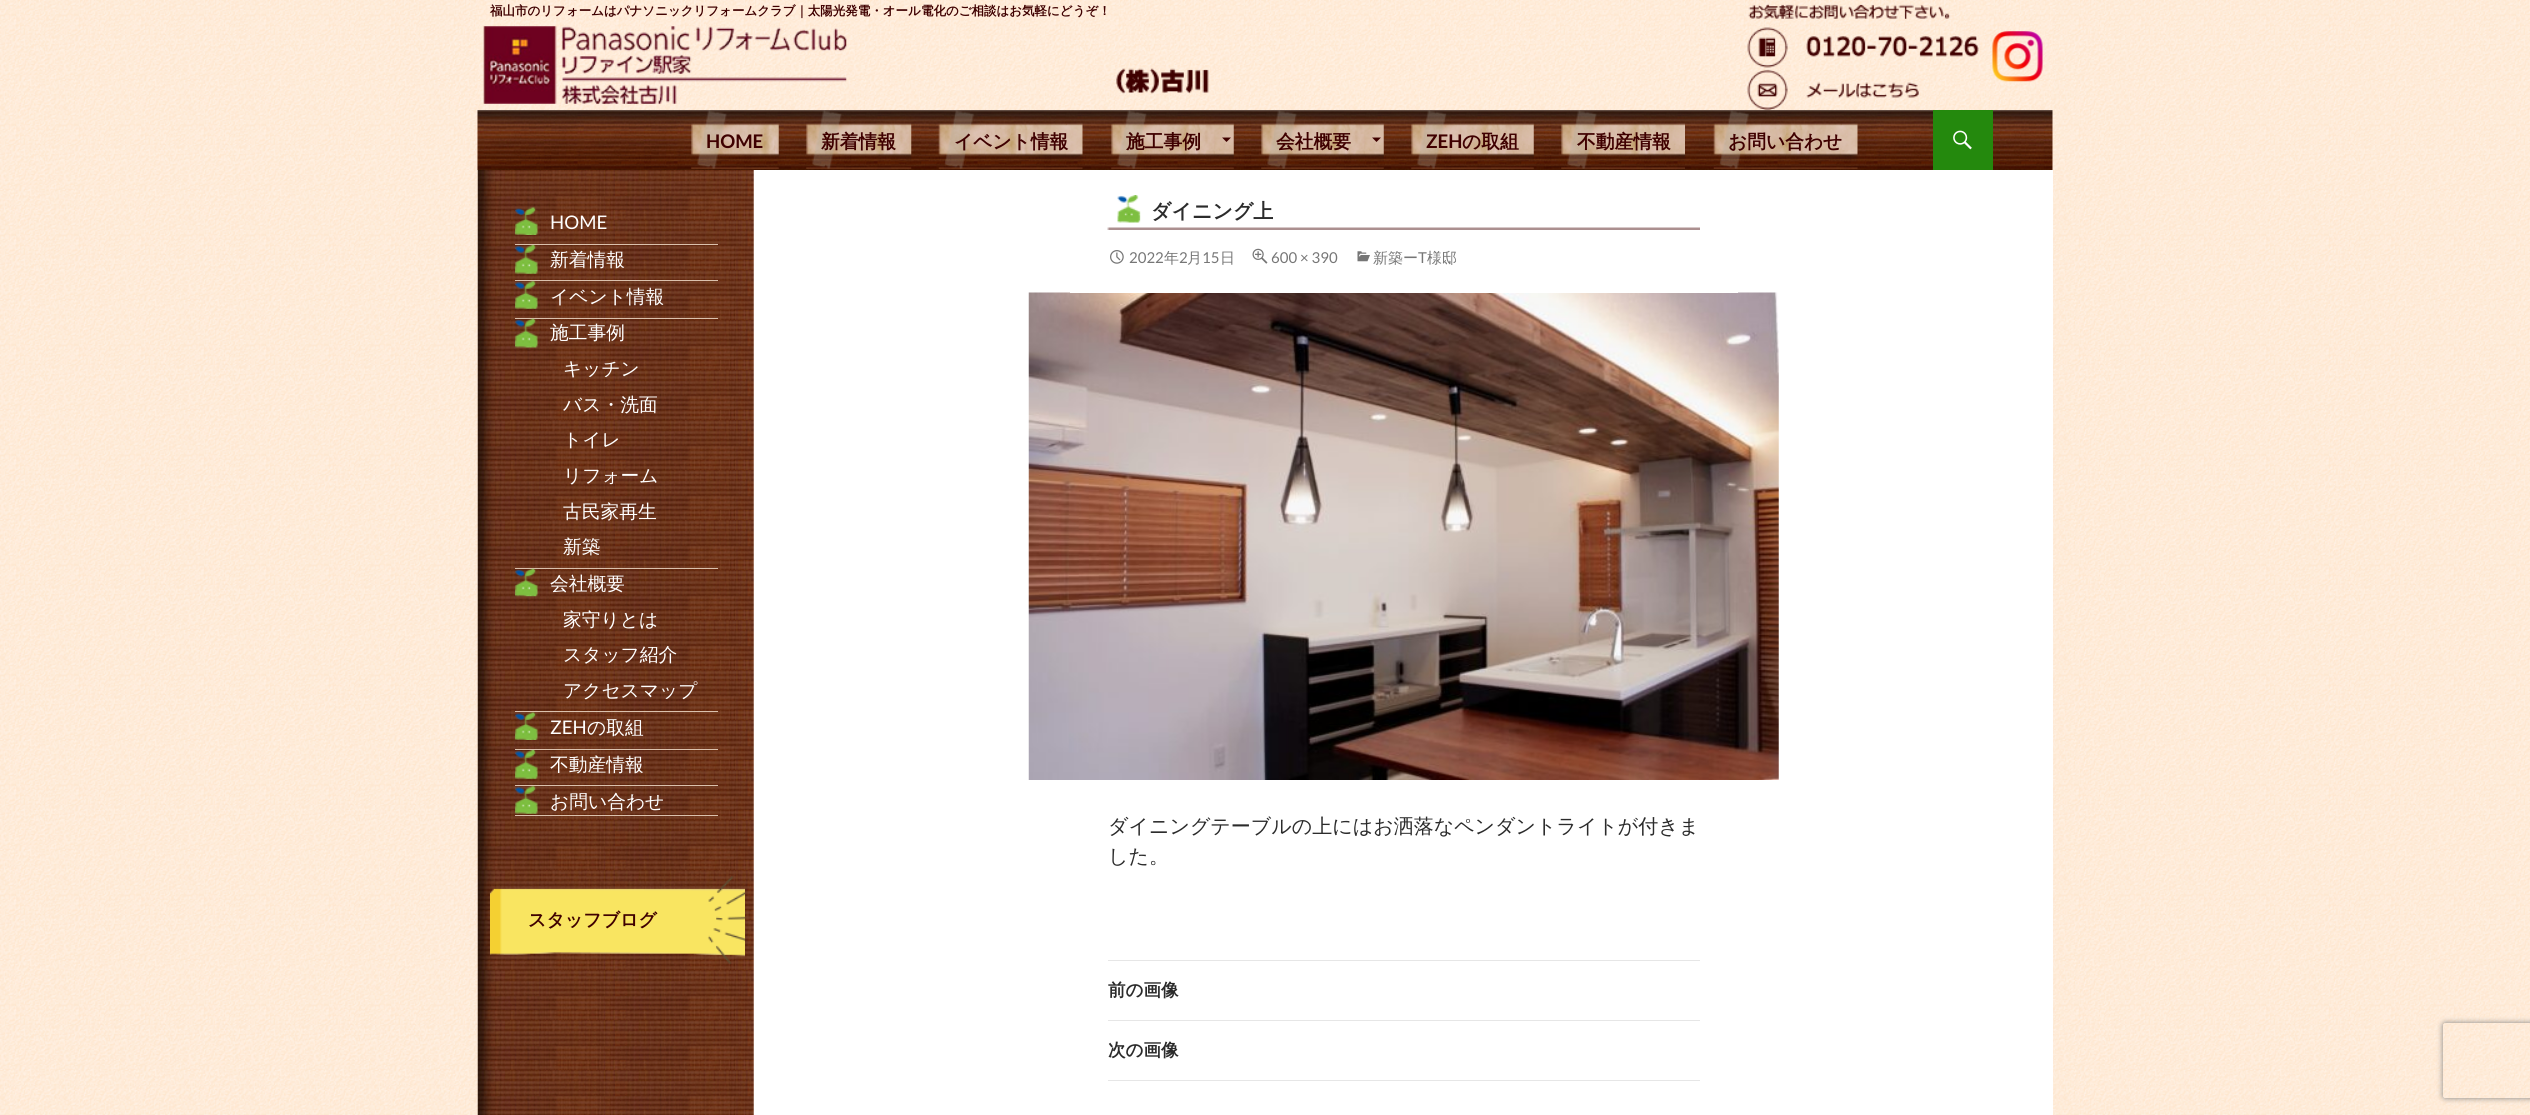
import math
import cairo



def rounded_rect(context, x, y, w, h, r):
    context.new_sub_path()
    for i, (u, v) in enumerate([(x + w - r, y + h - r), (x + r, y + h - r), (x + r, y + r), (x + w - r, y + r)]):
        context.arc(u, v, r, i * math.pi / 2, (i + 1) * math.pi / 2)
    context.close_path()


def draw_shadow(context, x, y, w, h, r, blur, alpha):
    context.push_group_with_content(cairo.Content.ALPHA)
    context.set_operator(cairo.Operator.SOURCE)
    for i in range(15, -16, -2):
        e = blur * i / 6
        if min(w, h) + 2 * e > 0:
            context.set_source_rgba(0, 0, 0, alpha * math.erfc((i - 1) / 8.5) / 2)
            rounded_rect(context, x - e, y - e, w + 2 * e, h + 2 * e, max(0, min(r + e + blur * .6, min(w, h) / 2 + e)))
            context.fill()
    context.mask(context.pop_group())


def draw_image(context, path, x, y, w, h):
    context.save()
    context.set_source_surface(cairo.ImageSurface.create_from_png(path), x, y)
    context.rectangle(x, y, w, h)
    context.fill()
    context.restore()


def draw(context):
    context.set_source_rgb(1, 1, 1)
    context.paint()
    draw_image(context, "images/1.png", 0, 0, 2530, 1115)
    draw_image(context, "images/2.png", 477, 0, 1576, 110)
    draw_image(context, "images/3.png", 483, 26, 364, 78)
    draw_image(context, "images/4.png", 1116, 68, 93, 26)
    draw_image(context, "images/7.png", 477, 110, 1576, 60)
    draw_image(context, "images/5.png", 1747, 3, 232, 108)
    draw_image(context, "images/6.png", 1992, 31, 51, 51)
    draw_image(context, "images/8.png", 691, 110, 88, 59)
    draw_image(context, "images/9.png", 806, 110, 106, 59)
    draw_image(context, "images/10.png", 938, 110, 145, 59)
    draw_image(context, "images/11.png", 1111, 110, 123, 59)
    context.set_source_rgb(63 / 255, 0, 0)
    context.new_path()
    context.move_to(1222, 137.5)
    context.line_to(1231, 137.5)
    context.line_to(1226.5, 142)
    context.close_path()
    context.fill()
    draw_image(context, "images/12.png", 1261, 110, 123, 59)
    context.new_path()
    context.move_to(1372, 137.5)
    context.line_to(1381, 137.5)
    context.line_to(1376.5, 142)
    context.close_path()
    context.fill()
    draw_image(context, "images/13.png", 1411, 110, 123, 59)
    draw_image(context, "images/14.png", 1561, 110, 124, 59)
    draw_image(context, "images/15.png", 1713, 110, 145, 59)
    context.set_source_rgb(36 / 255, 137 / 255, 13 / 255)
    context.rectangle(1933, 110, 60, 60)
    context.fill()
    draw_image(context, "images/16.png", 1953, 130, 19, 20)
    context.set_source_rgb(1, 1, 1)
    context.rectangle(753, 170, 1300, 945)
    context.fill()
    draw_image(context, "images/17.png", 477, 170, 277, 945)
    draw_image(context, "images/18.png", 515, 207, 23, 28)
    context.set_source_rgb(219 / 255, 193 / 255, 173 / 255)
    context.rectangle(515, 244, 203, 1)
    context.fill()
    draw_image(context, "images/19.png", 515, 245, 23, 29)
    context.rectangle(515, 280, 203, 1)
    context.fill()
    draw_image(context, "images/20.png", 515, 281, 23, 28)
    context.rectangle(515, 318, 203, 1)
    context.fill()
    draw_image(context, "images/21.png", 515, 318, 23, 30)
    context.rectangle(515, 568, 203, 1)
    context.fill()
    draw_image(context, "images/22.png", 515, 568, 23, 29)
    context.rectangle(515, 711, 203, 1)
    context.fill()
    draw_image(context, "images/23.png", 515, 712, 23, 28)
    context.rectangle(515, 749, 203, 1)
    context.fill()
    draw_image(context, "images/24.png", 515, 750, 23, 29)
    context.rectangle(515, 785, 203, 1)
    context.fill()
    draw_image(context, "images/25.png", 515, 786, 23, 28)
    context.rectangle(515, 815, 203, 1)
    context.fill()
    draw_image(context, "images/26.png", 490, 876, 255, 88)
    draw_image(context, "images/31.png", 1028, 292, 751, 488)
    context.set_source_rgb(1, 1, 1)
    context.rectangle(1070, 292, 668, 1)
    context.fill()
    draw_image(context, "images/27.png", 1107, 195, 593, 35)
    draw_image(context, "images/28.png", 1110, 250, 14, 14)
    draw_image(context, "images/29.png", 1252, 248, 16, 16)
    draw_image(context, "images/30.png", 1357, 251, 13, 11)
    context.set_source_rgb(230 / 255, 230 / 255, 230 / 255)
    context.rectangle(1108, 960, 592, 1)
    context.fill()
    context.rectangle(1108, 1020, 592, 1)
    context.fill()
    context.rectangle(1108, 1080, 592, 1)
    context.fill()
    context.save()
    context.set_fill_rule(cairo.FillRule.EVEN_ODD)
    context.new_path()
    context.move_to(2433, 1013)
    context.line_to(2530, 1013)
    context.line_to(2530, 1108)
    context.line_to(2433, 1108)
    context.close_path()
    context.move_to(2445.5, 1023)
    context.line_to(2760.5, 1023)
    context.curve_to(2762, 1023, 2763, 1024, 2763, 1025.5)
    context.line_to(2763, 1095.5)
    context.curve_to(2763, 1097, 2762, 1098, 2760.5, 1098)
    context.line_to(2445.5, 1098)
    context.curve_to(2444, 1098, 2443, 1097, 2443, 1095.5)
    context.line_to(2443, 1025.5)
    context.curve_to(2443, 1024, 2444, 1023, 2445.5, 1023)
    context.close_path()
    context.clip()
    context.set_source_rgb(128 / 255, 128 / 255, 128 / 255)
    draw_shadow(context, 2443, 1023, 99, 75, 2.5, 3, 1)
    context.restore()
    context.select_font_face("WenQuanYi Zen Hei", cairo.FontSlant.NORMAL, cairo.FontWeight.BOLD)
    context.set_font_size(12.5)
    context.set_source_rgb(63 / 255, 0, 0)
    context.move_to(490, 15)
    context.show_text("福山市のリフォームはパナソニックリフォームクラブ｜太陽光発電・オール電化のご相談はお気軽にどうぞ！")
    context.select_font_face("Lato", cairo.FontSlant.NORMAL, cairo.FontWeight.BOLD)
    context.set_font_size(18.75)
    context.move_to(706, 148)
    context.show_text("HOME")
    context.select_font_face("WenQuanYi Zen Hei", cairo.FontSlant.NORMAL, cairo.FontWeight.BOLD)
    context.move_to(821, 148)
    context.show_text("新着情報")
    context.move_to(954, 148)
    context.show_text("イベント情報")
    context.move_to(1126, 148)
    context.show_text("施工事例")
    context.move_to(1276, 148)
    context.show_text("会社概要")
    context.select_font_face("Lato", cairo.FontSlant.NORMAL, cairo.FontWeight.BOLD)
    context.move_to(1426, 148)
    context.show_text("ZEH")
    context.select_font_face("WenQuanYi Zen Hei", cairo.FontSlant.NORMAL, cairo.FontWeight.BOLD)
    context.move_to(1462, 148)
    context.show_text("の取組")
    context.move_to(1577, 148)
    context.show_text("不動産情報")
    context.move_to(1728, 148)
    context.show_text("お問い合わせ")
    context.select_font_face("Lato")
    context.set_source_rgb(1, 1, 1)
    context.move_to(550, 229)
    context.show_text("HOME")
    context.select_font_face("WenQuanYi Zen Hei Medium")
    context.move_to(550, 266)
    context.show_text("新着情報")
    context.move_to(550, 303)
    context.show_text("イベント情報")
    context.move_to(550, 339)
    context.show_text("施工事例")
    context.move_to(563, 375)
    context.show_text("キッチン")
    context.move_to(563, 411)
    context.show_text("バス・洗面")
    context.move_to(563, 446)
    context.show_text("トイレ")
    context.move_to(563, 482)
    context.show_text("リフォーム")
    context.move_to(563, 518)
    context.show_text("古民家再生")
    context.move_to(563, 553)
    context.show_text("新築")
    context.move_to(550, 590)
    context.show_text("会社概要")
    context.move_to(563, 626)
    context.show_text("家守りとは")
    context.move_to(563, 661)
    context.show_text("スタッフ紹介")
    context.move_to(563, 697)
    context.show_text("アクセスマップ")
    context.select_font_face("Lato")
    context.move_to(550, 734)
    context.show_text("ZEH")
    context.select_font_face("WenQuanYi Zen Hei Medium")
    context.move_to(587, 734)
    context.show_text("の取組")
    context.move_to(550, 771)
    context.show_text("不動産情報")
    context.move_to(550, 808)
    context.show_text("お問い合わせ")
    context.select_font_face("WenQuanYi Zen Hei", cairo.FontSlant.NORMAL, cairo.FontWeight.BOLD)
    context.set_font_size(18)
    context.set_source_rgb(63 / 255, 0, 0)
    context.move_to(528, 926)
    context.show_text("スタッフブログ")
    context.set_font_size(20)
    context.set_source_rgb(43 / 255, 43 / 255, 43 / 255)
    context.move_to(1151, 218)
    context.show_text("ダイニング上")
    context.select_font_face("Lato")
    context.set_font_size(15)
    context.set_source_rgb(118 / 255, 118 / 255, 118 / 255)
    context.move_to(1129, 263)
    context.show_text("2022")
    context.select_font_face("WenQuanYi Zen Hei Medium")
    context.move_to(1164, 263)
    context.show_text("年")
    context.select_font_face("Lato")
    context.move_to(1179, 263)
    context.show_text("2")
    context.select_font_face("WenQuanYi Zen Hei Medium")
    context.move_to(1187, 263)
    context.show_text("月")
    context.select_font_face("Lato")
    context.move_to(1202, 263)
    context.show_text("15")
    context.select_font_face("WenQuanYi Zen Hei Medium")
    context.move_to(1220, 263)
    context.show_text("日")
    context.select_font_face("Lato")
    context.move_to(1271, 263)
    context.show_text("600 × 390")
    context.select_font_face("WenQuanYi Zen Hei Medium")
    context.move_to(1373, 263)
    context.show_text("新築ー")
    context.select_font_face("Lato")
    context.move_to(1418, 263)
    context.show_text("T")
    context.select_font_face("WenQuanYi Zen Hei Medium")
    context.move_to(1427, 263)
    context.show_text("様邸")
    context.set_font_size(20)
    context.set_source_rgb(43 / 255, 43 / 255, 43 / 255)
    context.move_to(1108, 833)
    context.show_text("ダイニングテーブルの上にはお洒落なペンダントライトが付きま")
    context.move_to(1108, 863)
    context.show_text("した。")
    context.select_font_face("WenQuanYi Zen Hei", cairo.FontSlant.NORMAL, cairo.FontWeight.BOLD)
    context.set_font_size(17.5)
    context.move_to(1108, 996)
    context.show_text("前の画像")
    context.move_to(1108, 1056)
    context.show_text("次の画像")


surface = cairo.ImageSurface(cairo.Format.RGB24, 2530, 1115)
context = cairo.Context(surface)
options = cairo.FontOptions()
options.set_hint_metrics(cairo.HintMetrics.OFF)
options.set_hint_style(cairo.HintStyle.NONE)
context.set_font_options(options)
context.set_miter_limit(4)
draw(context)
surface.write_to_png("out.png")
